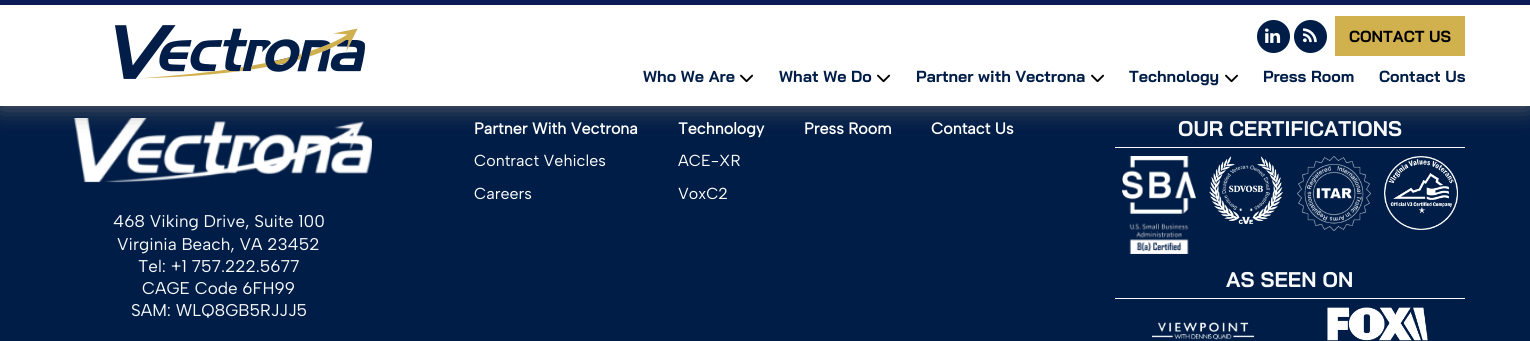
import math
import cairo



def rounded_rect(context, x, y, w, h, r):
    context.new_sub_path()
    for i, (u, v) in enumerate([(x + w - r, y + h - r), (x + r, y + h - r), (x + r, y + r), (x + w - r, y + r)]):
        context.arc(u, v, r, i * math.pi / 2, (i + 1) * math.pi / 2)
    context.close_path()


def draw_shadow(context, x, y, w, h, r, blur, alpha):
    context.push_group_with_content(cairo.Content.ALPHA)
    context.set_operator(cairo.Operator.SOURCE)
    for i in range(15, -16, -2):
        e = blur * i / 6
        if min(w, h) + 2 * e > 0:
            context.set_source_rgba(0, 0, 0, alpha * math.erfc((i - 1) / 8.5) / 2)
            rounded_rect(context, x - e, y - e, w + 2 * e, h + 2 * e, max(0, min(r + e + blur * .6, min(w, h) / 2 + e)))
            context.fill()
    context.mask(context.pop_group())


def draw_image(context, path, x, y, w, h):
    context.save()
    context.set_source_surface(cairo.ImageSurface.create_from_png(path), x, y)
    context.rectangle(x, y, w, h)
    context.fill()
    context.restore()


def draw(context):
    context.set_source_rgb(0, 29 / 255, 71 / 255)
    context.paint()
    draw_image(context, "images/11.png", 73, 118, 299, 65)
    context.set_source_rgb(102 / 255, 102 / 255, 102 / 255)
    draw_shadow(context, 0, 0, 1530, 106, 0, 12.5, 1)
    context.set_source_rgb(1, 1, 1)
    context.rectangle(0, 5, 1530, 101)
    context.fill()
    context.set_source_rgb(11 / 255, 27 / 255, 86 / 255)
    context.rectangle(0, 0, 1530, 5)
    context.fill()
    draw_image(context, "images/1.png", 115, 25, 250, 54)
    context.set_source_rgb(0, 29 / 255, 71 / 255)
    context.arc(1273.5, 36.5, 16.5, 0, 2 * math.pi)
    context.fill()
    draw_image(context, "images/2.png", 1265, 28, 16, 15)
    context.arc(1310.5, 36.5, 16.5, 0, 2 * math.pi)
    context.fill()
    draw_image(context, "images/3.png", 1303, 28, 14, 15)
    context.set_source_rgb(209 / 255, 176 / 255, 78 / 255)
    context.rectangle(1335, 16, 130, 40)
    context.fill()
    draw_image(context, "images/4.png", 740, 74, 13, 9)
    draw_image(context, "images/4.png", 877, 74, 13, 9)
    draw_image(context, "images/4.png", 1091, 74, 13, 9)
    draw_image(context, "images/4.png", 1225, 74, 13, 9)
    context.set_source_rgb(1, 1, 1)
    context.rectangle(1115, 147, 350, 1)
    context.fill()
    draw_image(context, "images/5.png", 1122, 156, 74, 98)
    draw_image(context, "images/6.png", 1209, 156, 74, 68)
    draw_image(context, "images/7.png", 1297, 156, 74, 75)
    draw_image(context, "images/8.png", 1384, 156, 74, 74)
    context.rectangle(1115, 298, 350, 1)
    context.fill()
    draw_image(context, "images/9.png", 1152, 322, 102, 18)
    draw_image(context, "images/10.png", 1327, 307, 101, 34)
    context.select_font_face("Bai Jamjuree", cairo.FontSlant.NORMAL, cairo.FontWeight.BOLD)
    context.set_font_size(16)
    context.set_source_rgb(0, 0, 0)
    context.move_to(1349, 42)
    context.show_text("CONTACT US")
    context.set_source_rgb(0, 29 / 255, 71 / 255)
    context.move_to(643, 82)
    context.show_text("Who We Are")
    context.move_to(779, 82)
    context.show_text("What We Do")
    context.move_to(916, 82)
    context.show_text("Partner with Vectrona")
    context.move_to(1129, 82)
    context.show_text("Technology")
    context.move_to(1263, 82)
    context.show_text("Press Room")
    context.move_to(1379, 82)
    context.show_text("Contact Us")
    context.select_font_face("Albert Sans", cairo.FontSlant.NORMAL, cairo.FontWeight.BOLD)
    context.set_source_rgb(1, 1, 1)
    context.move_to(474, 134)
    context.show_text("Partner With Vectrona")
    context.select_font_face("Albert Sans")
    context.move_to(474, 166)
    context.show_text("Contract Vehicles")
    context.move_to(474, 199)
    context.show_text("Careers")
    context.select_font_face("Albert Sans", cairo.FontSlant.NORMAL, cairo.FontWeight.BOLD)
    context.move_to(678, 134)
    context.show_text("Technology")
    context.select_font_face("Albert Sans")
    context.move_to(678, 166)
    context.show_text("ACE-XR")
    context.move_to(678, 199)
    context.show_text("VoxC2")
    context.select_font_face("Albert Sans", cairo.FontSlant.NORMAL, cairo.FontWeight.BOLD)
    context.move_to(804, 134)
    context.show_text("Press Room")
    context.move_to(931, 134)
    context.show_text("Contact Us")
    context.select_font_face("Bai Jamjuree", cairo.FontSlant.NORMAL, cairo.FontWeight.BOLD)
    context.set_font_size(21.25)
    context.set_source_rgb(248 / 255, 249 / 255, 250 / 255)
    context.move_to(1178, 136)
    context.show_text("OUR CERTIFICATIONS")
    context.move_to(1226, 287)
    context.show_text("AS SEEN ON")
    context.select_font_face("Albert Sans")
    context.set_font_size(17)
    context.move_to(113, 227)
    context.show_text("468 Viking Drive, Suite 100")
    context.move_to(117, 250)
    context.show_text("Virginia Beach, VA 23452")
    context.move_to(138, 272)
    context.show_text("Tel: +1 757.222.5677")
    context.move_to(142, 294)
    context.show_text("CAGE Code 6FH99")
    context.move_to(131, 316)
    context.show_text("SAM: WLQ8GB5RJJJ5")


surface = cairo.ImageSurface(cairo.Format.RGB24, 1530, 341)
context = cairo.Context(surface)
options = cairo.FontOptions()
options.set_hint_metrics(cairo.HintMetrics.OFF)
options.set_hint_style(cairo.HintStyle.NONE)
context.set_font_options(options)
context.set_miter_limit(4)
draw(context)
surface.write_to_png("out.png")
